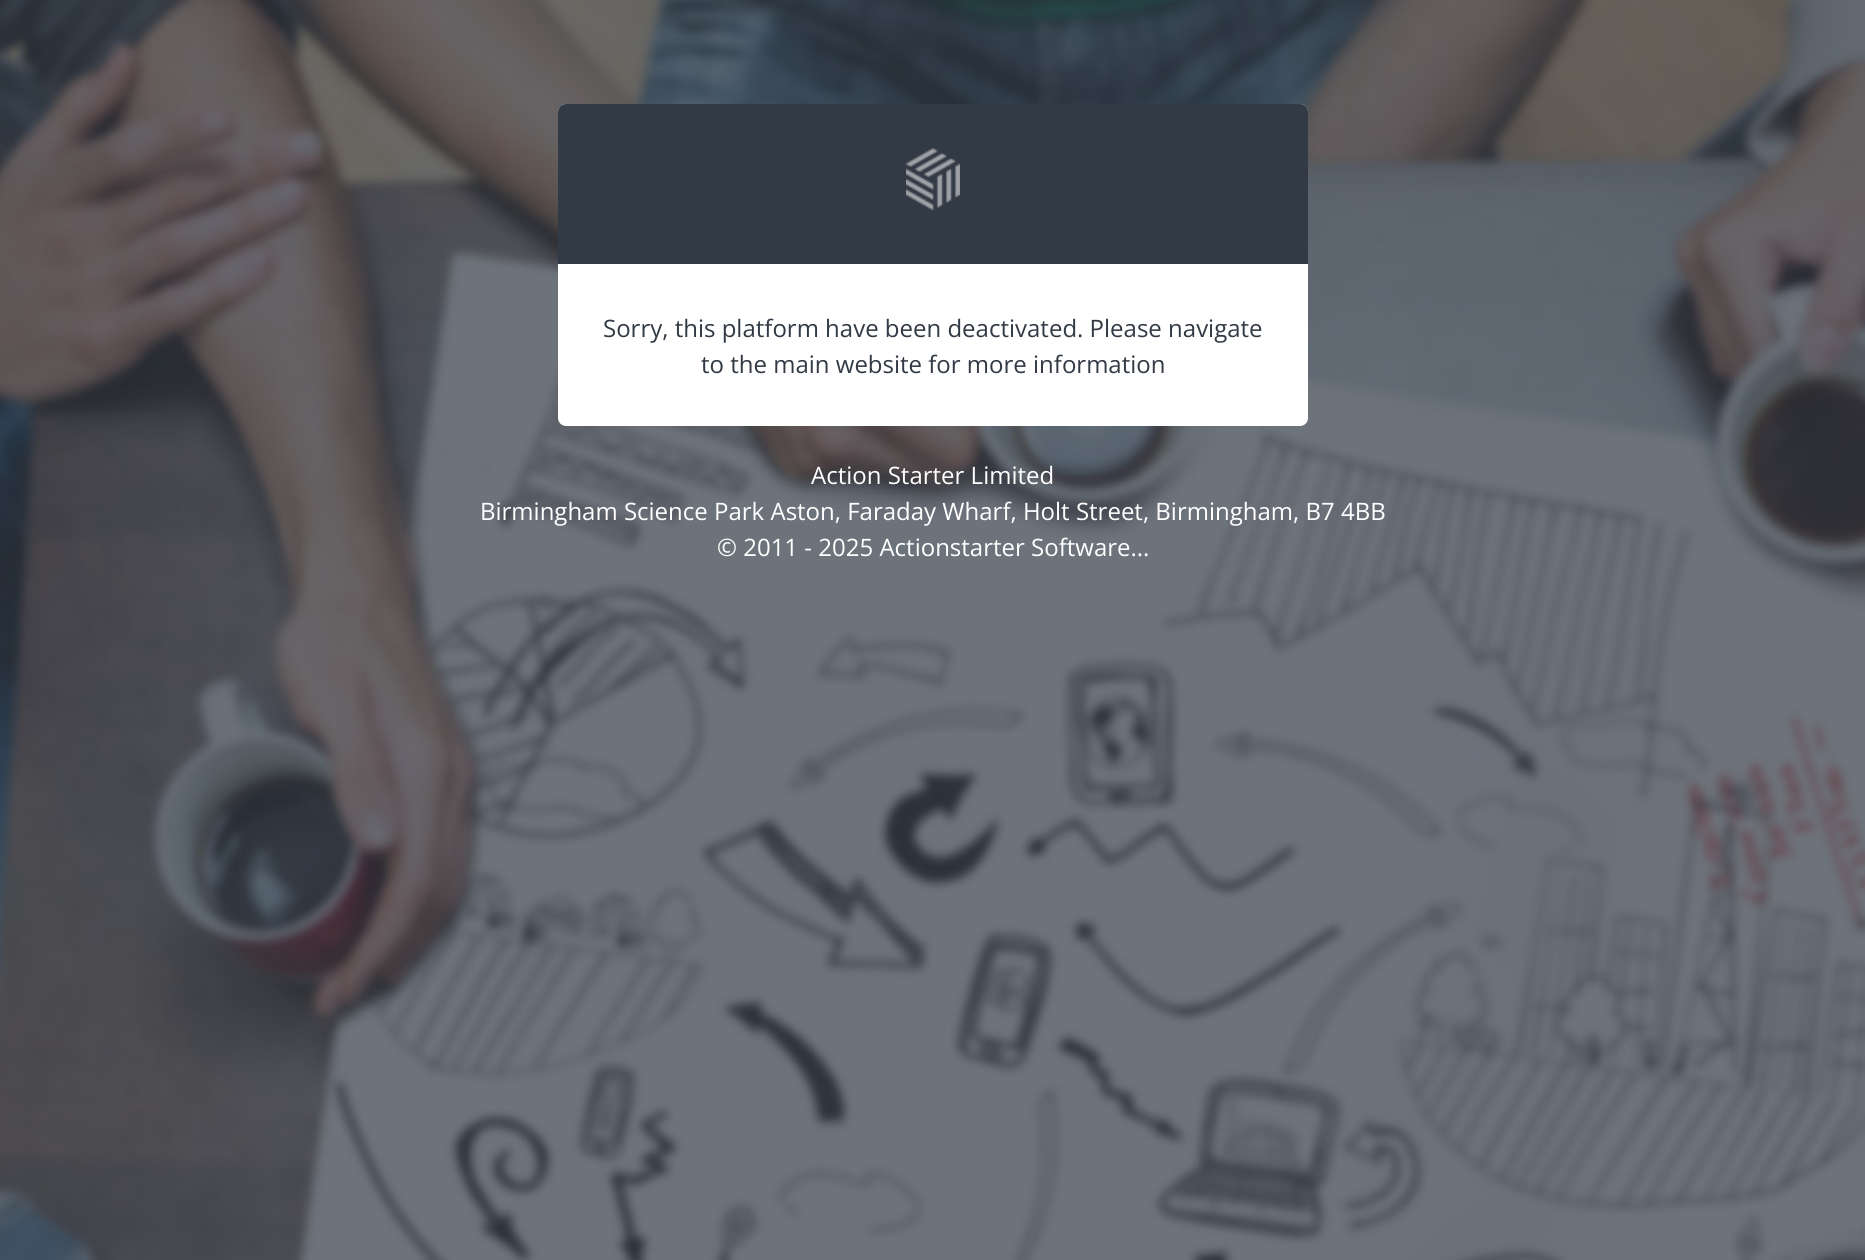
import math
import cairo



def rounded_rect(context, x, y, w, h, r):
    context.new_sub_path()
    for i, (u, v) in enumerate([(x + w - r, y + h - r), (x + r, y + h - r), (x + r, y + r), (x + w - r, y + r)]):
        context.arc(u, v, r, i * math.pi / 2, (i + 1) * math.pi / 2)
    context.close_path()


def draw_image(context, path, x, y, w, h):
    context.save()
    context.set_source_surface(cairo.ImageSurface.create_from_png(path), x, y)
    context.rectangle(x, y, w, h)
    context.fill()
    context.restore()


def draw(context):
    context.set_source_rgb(1, 1, 1)
    context.paint()
    draw_image(context, "images/1.png", 0, 0, 1865, 1260)
    context.set_source_rgb(1, 1, 1)
    rounded_rect(context, 558, 104, 750, 322, 8)
    context.fill()
    context.set_source_rgb(50 / 255, 58 / 255, 69 / 255)
    context.new_path()
    context.move_to(566, 104)
    context.line_to(1300, 104)
    context.curve_to(1304.5, 104, 1308, 107.5, 1308, 112)
    context.line_to(1308, 264)
    context.line_to(558, 264)
    context.line_to(558, 112)
    context.curve_to(558, 107.5, 561.5, 104, 566, 104)
    context.close_path()
    context.fill()
    draw_image(context, "images/2.png", 906, 148, 54, 62)
    context.select_font_face("Open Sans")
    context.set_font_size(24)
    context.move_to(603, 337)
    context.show_text("Sorry, this platform have been deactivated. Please navigate")
    context.move_to(701, 373)
    context.show_text("to the main website for more information")
    context.set_source_rgb(1, 1, 1)
    context.move_to(811, 484)
    context.show_text("Action Starter Limited")
    context.move_to(480, 520)
    context.show_text("Birmingham Science Park Aston, Faraday Wharf, Holt Street, Birmingham, B7 4BB")
    context.move_to(717, 556)
    context.show_text("© 2011 - 2025 Actionstarter Software...")


surface = cairo.ImageSurface(cairo.Format.RGB24, 1865, 1260)
context = cairo.Context(surface)
options = cairo.FontOptions()
options.set_hint_metrics(cairo.HintMetrics.OFF)
options.set_hint_style(cairo.HintStyle.NONE)
context.set_font_options(options)
context.set_miter_limit(4)
draw(context)
surface.write_to_png("out.png")
